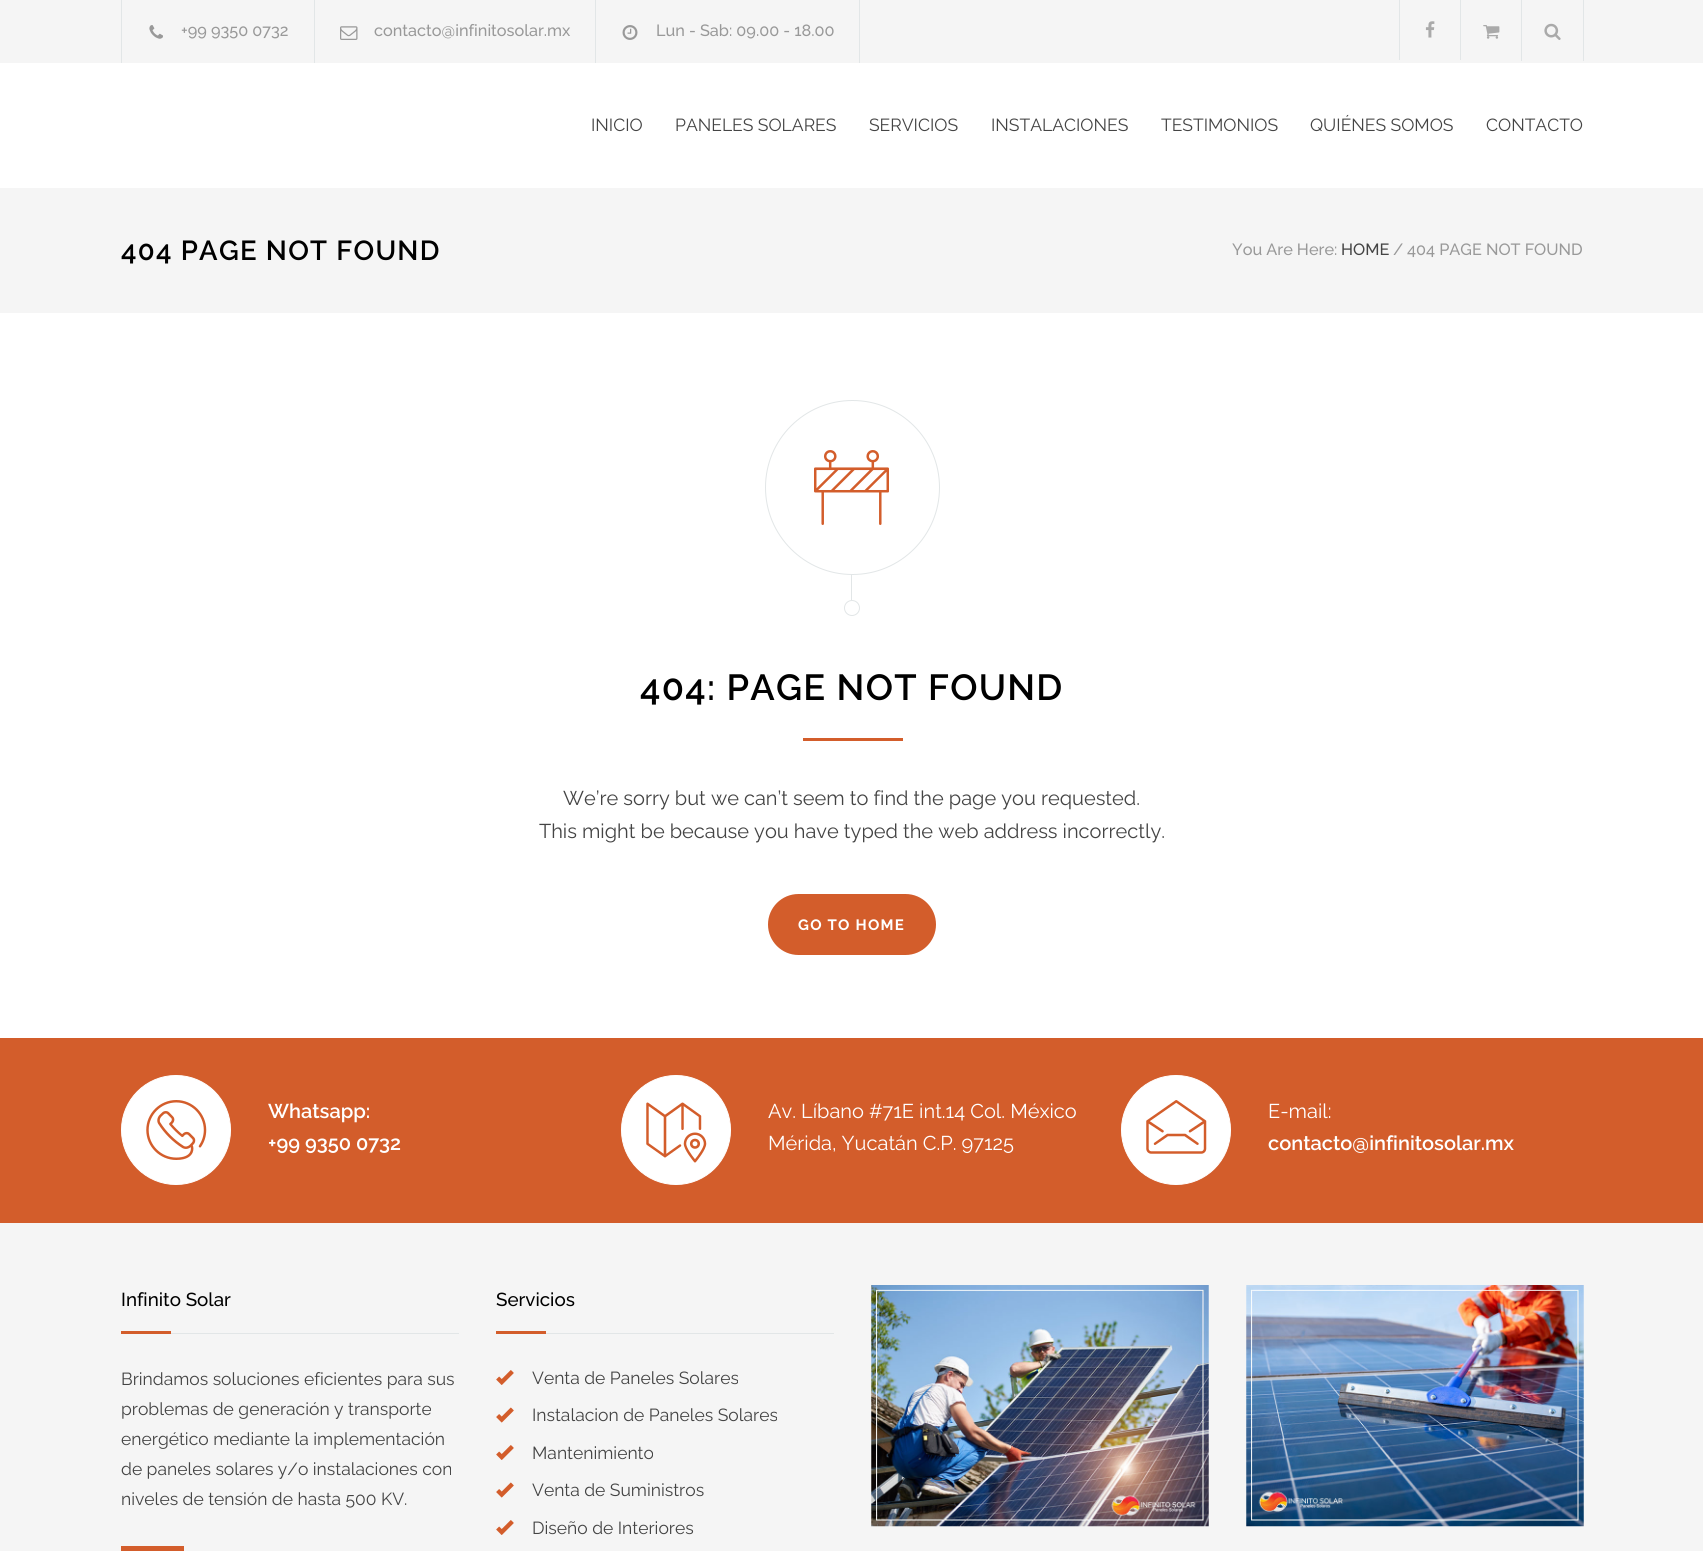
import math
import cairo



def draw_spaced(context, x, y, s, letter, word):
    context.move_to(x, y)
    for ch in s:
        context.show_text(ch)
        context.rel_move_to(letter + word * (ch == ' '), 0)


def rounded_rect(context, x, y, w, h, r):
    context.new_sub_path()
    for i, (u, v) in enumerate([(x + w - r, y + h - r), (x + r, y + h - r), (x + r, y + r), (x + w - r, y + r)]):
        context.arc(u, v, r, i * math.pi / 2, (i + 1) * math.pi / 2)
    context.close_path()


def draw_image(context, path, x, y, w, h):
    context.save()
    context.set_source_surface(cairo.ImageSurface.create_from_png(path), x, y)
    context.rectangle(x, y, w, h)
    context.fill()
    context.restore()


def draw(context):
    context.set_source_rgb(1, 1, 1)
    context.paint()
    context.set_source_rgb(245 / 255, 245 / 255, 245 / 255)
    context.rectangle(0, 0, 1703, 63)
    context.fill()
    context.set_source_rgb(226 / 255, 230 / 255, 231 / 255)
    context.rectangle(314, 0, 1, 63)
    context.fill()
    context.rectangle(121, 0, 1, 63)
    context.fill()
    draw_image(context, "images/1.png", 149, 25, 14, 14)
    context.rectangle(595, 0, 1, 63)
    context.fill()
    draw_image(context, "images/2.png", 340, 26, 18, 14)
    context.rectangle(859, 0, 1, 63)
    context.fill()
    draw_image(context, "images/3.png", 622, 25, 16, 15)
    context.rectangle(1460, 0, 1, 60)
    context.fill()
    context.rectangle(1399, 0, 1, 60)
    context.fill()
    draw_image(context, "images/4.png", 1425, 21, 10, 17)
    context.rectangle(1521, 0, 1, 61)
    context.fill()
    draw_image(context, "images/5.png", 1483, 25, 17, 14)
    context.rectangle(1583, 0, 1, 61)
    context.fill()
    draw_image(context, "images/6.png", 1544, 23, 17, 17)
    context.set_source_rgb(245 / 255, 245 / 255, 245 / 255)
    context.rectangle(0, 188, 1703, 125)
    context.fill()
    context.arc(852.5, 487.5, 87, 0, 2 * math.pi)
    context.set_source_rgb(226 / 255, 230 / 255, 231 / 255)
    context.set_line_width(1)
    context.stroke()
    context.rectangle(851, 575, 1, 25)
    context.fill()
    context.arc(852, 608, 7.5, 0, 2 * math.pi)
    context.stroke()
    context.set_source_rgb(211 / 255, 93 / 255, 43 / 255)
    context.rectangle(803, 738, 100, 3)
    context.fill()
    rounded_rect(context, 769.5, 895.5, 165, 58, 29)
    context.fill_preserve()
    context.set_line_width(3)
    context.stroke()
    context.rectangle(0, 1038, 1703, 185)
    context.fill()
    context.set_source_rgb(1, 1, 1)
    context.arc(176, 1130, 54.5, 0, 2 * math.pi)
    context.fill_preserve()
    context.set_line_width(1)
    context.stroke()
    draw_image(context, "images/7.png", 146, 1100, 61, 60)
    context.arc(676, 1130, 54.5, 0, 2 * math.pi)
    context.fill_preserve()
    context.stroke()
    draw_image(context, "images/8.png", 646, 1102, 61, 61)
    context.arc(1176, 1130, 54.5, 0, 2 * math.pi)
    context.fill_preserve()
    context.stroke()
    draw_image(context, "images/9.png", 1146, 1100, 61, 54)
    context.set_source_rgb(245 / 255, 245 / 255, 245 / 255)
    context.rectangle(0, 1223, 1703, 328)
    context.fill()
    context.set_source_rgb(226 / 255, 230 / 255, 231 / 255)
    context.rectangle(171, 1333, 288, 1)
    context.fill()
    context.set_source_rgb(211 / 255, 93 / 255, 43 / 255)
    context.rectangle(121, 1331, 50, 3)
    context.fill()
    context.rectangle(121, 1546, 63, 5)
    context.fill()
    context.set_source_rgb(226 / 255, 230 / 255, 231 / 255)
    context.rectangle(546, 1333, 288, 1)
    context.fill()
    context.set_source_rgb(211 / 255, 93 / 255, 43 / 255)
    context.rectangle(496, 1331, 50, 3)
    context.fill()
    draw_image(context, "images/10.png", 496, 1370, 18, 15)
    draw_image(context, "images/11.png", 496, 1407, 18, 16)
    draw_image(context, "images/10.png", 496, 1445, 18, 15)
    draw_image(context, "images/11.png", 496, 1482, 18, 16)
    draw_image(context, "images/10.png", 496, 1520, 18, 15)
    draw_image(context, "images/12.png", 871, 1285, 338, 242)
    draw_image(context, "images/13.png", 1246, 1285, 338, 242)
    context.select_font_face("Raleway Medium")
    context.set_font_size(16.25)
    context.set_source_rgb(153 / 255, 153 / 255, 153 / 255)
    context.move_to(181, 36)
    context.show_text("+99 9350 0732")
    context.move_to(374, 36)
    context.show_text("contacto@infinitosolar.mx")
    context.move_to(656, 36)
    context.show_text("Lun - Sab: 09.00 - 18.00")
    context.select_font_face("Raleway")
    context.set_font_size(17.5)
    context.set_source_rgb(68 / 255, 68 / 255, 68 / 255)
    context.move_to(591, 131)
    context.show_text("INICIO")
    context.move_to(675, 131)
    context.show_text("PANELES SOLARES")
    context.move_to(869, 131)
    context.show_text("SERVICIOS")
    context.move_to(991, 131)
    context.show_text("INSTALACIONES")
    context.move_to(1161, 131)
    context.show_text("TESTIMONIOS")
    context.move_to(1310, 131)
    context.show_text("QUIÉNES SOMOS")
    context.move_to(1486, 131)
    context.show_text("CONTACTO")
    context.select_font_face("Raleway SemiBold")
    context.set_font_size(27.5)
    context.set_source_rgb(0, 0, 0)
    draw_spaced(context, 121, 260, "404 PAGE NOT FOUND", 1.25, 0)
    context.select_font_face("Raleway Medium")
    context.set_font_size(16.25)
    context.set_source_rgb(153 / 255, 153 / 255, 153 / 255)
    context.move_to(1232, 255)
    context.show_text("You Are Here:")
    context.set_source_rgb(68 / 255, 68 / 255, 68 / 255)
    context.move_to(1341, 255)
    context.show_text("HOME")
    context.set_source_rgb(153 / 255, 153 / 255, 153 / 255)
    context.move_to(1393, 255)
    context.show_text("/")
    context.move_to(1407, 255)
    context.show_text("404 PAGE NOT FOUND")
    context.select_font_face("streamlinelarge")
    context.set_font_size(75)
    context.set_source_rgb(211 / 255, 93 / 255, 43 / 255)
    context.move_to(814, 525)
    context.show_text("&")
    context.select_font_face("Raleway SemiBold")
    context.set_font_size(36.25)
    context.set_source_rgb(0, 0, 0)
    draw_spaced(context, 640, 700, "404: PAGE NOT FOUND", 1.25, 0)
    context.select_font_face("Raleway")
    context.set_font_size(20)
    context.set_source_rgb(68 / 255, 68 / 255, 68 / 255)
    context.move_to(563, 805)
    context.show_text("We’re sorry but we can’t seem to find the page you requested.")
    context.move_to(539, 838)
    context.show_text("This might be because you have typed the web address incorrectly.")
    context.select_font_face("Raleway", cairo.FontSlant.NORMAL, cairo.FontWeight.BOLD)
    context.set_font_size(15)
    context.set_source_rgb(1, 1, 1)
    draw_spaced(context, 798, 930, "GO TO HOME", 1.25, 0)
    context.select_font_face("Raleway SemiBold")
    context.set_font_size(20)
    context.move_to(268, 1118)
    context.show_text("Whatsapp:")
    context.move_to(268, 1150)
    context.show_text("+99 9350 0732")
    context.select_font_face("Raleway")
    context.move_to(768, 1118)
    context.show_text("Av. Líbano #71E int.14 Col. México")
    context.move_to(768, 1150)
    context.show_text("Mérida, Yucatán C.P. 97125")
    context.move_to(1268, 1118)
    context.show_text("E-mail:")
    context.select_font_face("Raleway SemiBold")
    context.move_to(1268, 1150)
    context.show_text("contacto@infinitosolar.mx")
    context.select_font_face("Raleway Medium")
    context.set_font_size(18.75)
    context.set_source_rgb(0, 0, 0)
    context.move_to(121, 1306)
    context.show_text("Infinito Solar")
    context.select_font_face("Raleway")
    context.set_font_size(17.5)
    context.set_source_rgb(68 / 255, 68 / 255, 68 / 255)
    context.move_to(121, 1385)
    context.show_text("Brindamos soluciones eficientes para sus")
    context.move_to(121, 1415)
    context.show_text("problemas de generación y transporte")
    context.move_to(121, 1445)
    context.show_text("energético mediante la implementación")
    context.move_to(121, 1475)
    context.show_text("de paneles solares y/o instalaciones con")
    context.move_to(121, 1505)
    context.show_text("niveles de tensión de hasta 500 KV.")
    context.select_font_face("Raleway Medium")
    context.set_font_size(18.75)
    context.set_source_rgb(0, 0, 0)
    context.move_to(496, 1306)
    context.show_text("Servicios")
    context.select_font_face("Raleway")
    context.set_font_size(17.5)
    context.set_source_rgb(68 / 255, 68 / 255, 68 / 255)
    context.move_to(532, 1384)
    context.show_text("Venta de Paneles Solares")
    context.move_to(532, 1421)
    context.show_text("Instalacion de Paneles Solares")
    context.move_to(532, 1459)
    context.show_text("Mantenimiento")
    context.move_to(532, 1496)
    context.show_text("Venta de Suministros")
    context.move_to(532, 1534)
    context.show_text("Diseño de Interiores")


surface = cairo.ImageSurface(cairo.Format.RGB24, 1703, 1551)
context = cairo.Context(surface)
options = cairo.FontOptions()
options.set_hint_metrics(cairo.HintMetrics.OFF)
options.set_hint_style(cairo.HintStyle.NONE)
context.set_font_options(options)
context.set_miter_limit(4)
draw(context)
surface.write_to_png("out.png")
